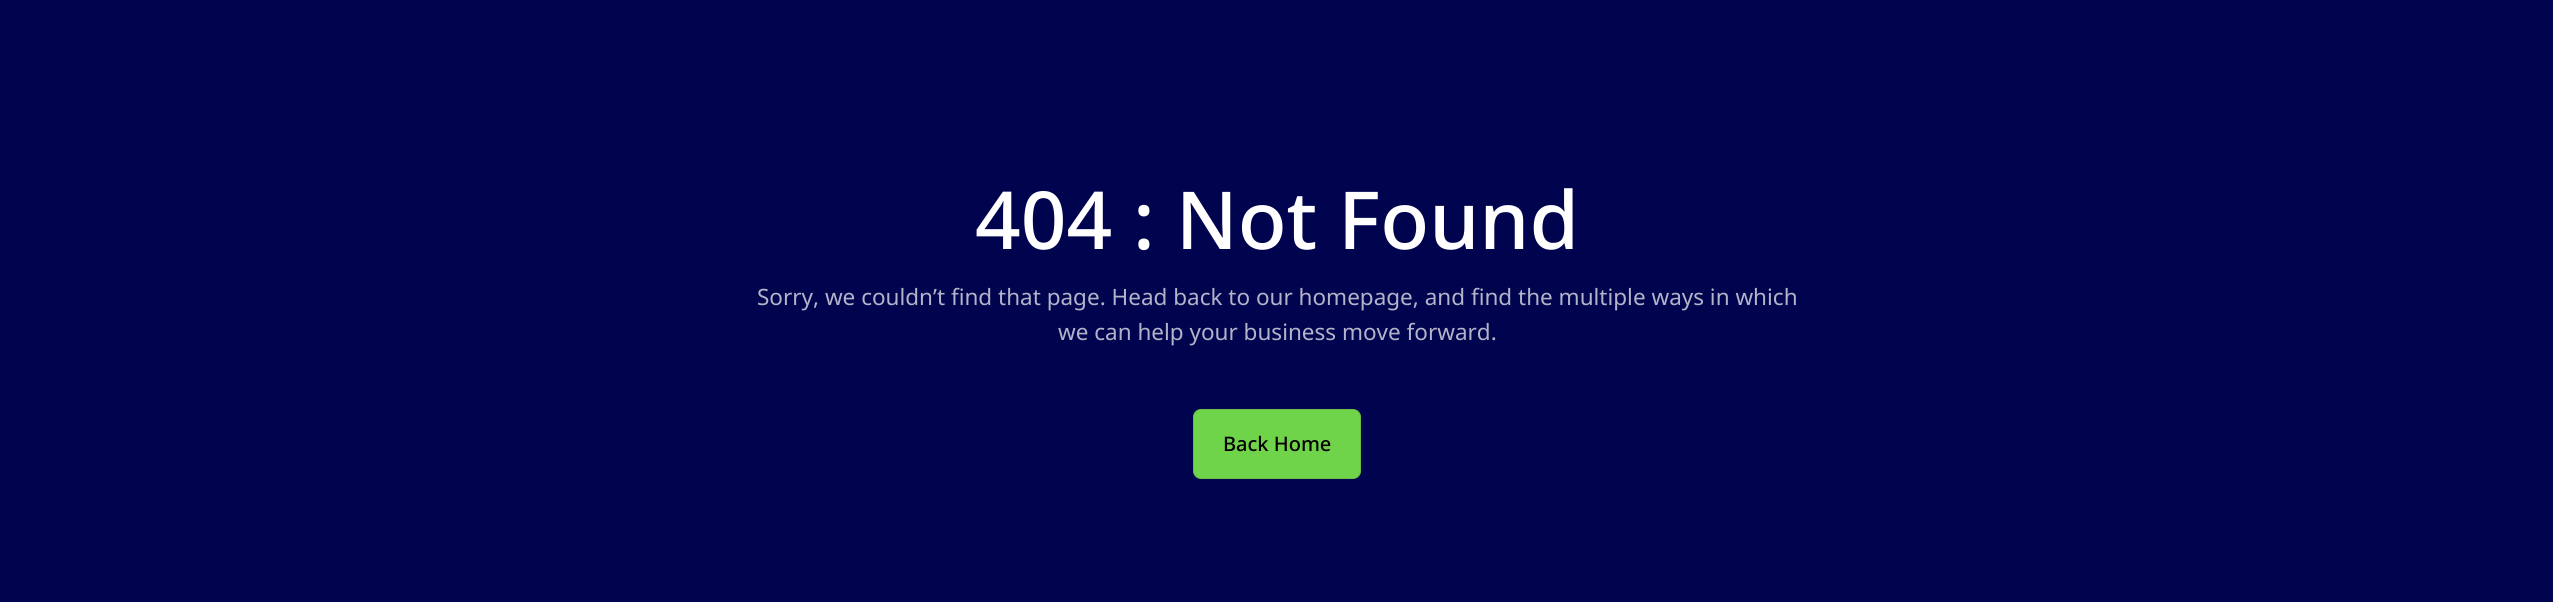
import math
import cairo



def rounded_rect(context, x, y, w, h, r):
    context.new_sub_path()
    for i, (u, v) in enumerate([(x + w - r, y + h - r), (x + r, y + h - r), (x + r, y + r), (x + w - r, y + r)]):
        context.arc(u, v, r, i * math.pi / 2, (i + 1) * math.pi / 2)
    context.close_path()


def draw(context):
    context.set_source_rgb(0, 3 / 255, 77 / 255)
    context.paint()
    context.set_source_rgb(112 / 255, 212 / 255, 75 / 255)
    rounded_rect(context, 1193.5, 409.5, 167, 69, 7.5)
    context.fill_preserve()
    context.set_source_rgb(101 / 255, 191 / 255, 68 / 255)
    context.set_line_width(1)
    context.stroke()
    context.select_font_face("Noto Sans Medium")
    context.set_font_size(80)
    context.set_source_rgb(1, 1, 1)
    context.move_to(975, 249)
    context.show_text("404 : Not Found")
    context.select_font_face("Noto Sans")
    context.set_font_size(22.5)
    context.set_source_rgb(179 / 255, 179 / 255, 202 / 255)
    context.move_to(757, 305)
    context.show_text("Sorry, we couldn’t find that page. Head back to our homepage, and find the multiple ways in which")
    context.move_to(1058, 340)
    context.show_text("we can help your business move forward.")
    context.select_font_face("Noto Sans Medium")
    context.set_font_size(20)
    context.set_source_rgb(0, 0, 0)
    context.move_to(1223, 451)
    context.show_text("Back Home")


surface = cairo.ImageSurface(cairo.Format.RGB24, 2553, 602)
context = cairo.Context(surface)
options = cairo.FontOptions()
options.set_hint_metrics(cairo.HintMetrics.OFF)
options.set_hint_style(cairo.HintStyle.NONE)
context.set_font_options(options)
context.set_miter_limit(4)
draw(context)
surface.write_to_png("out.png")
